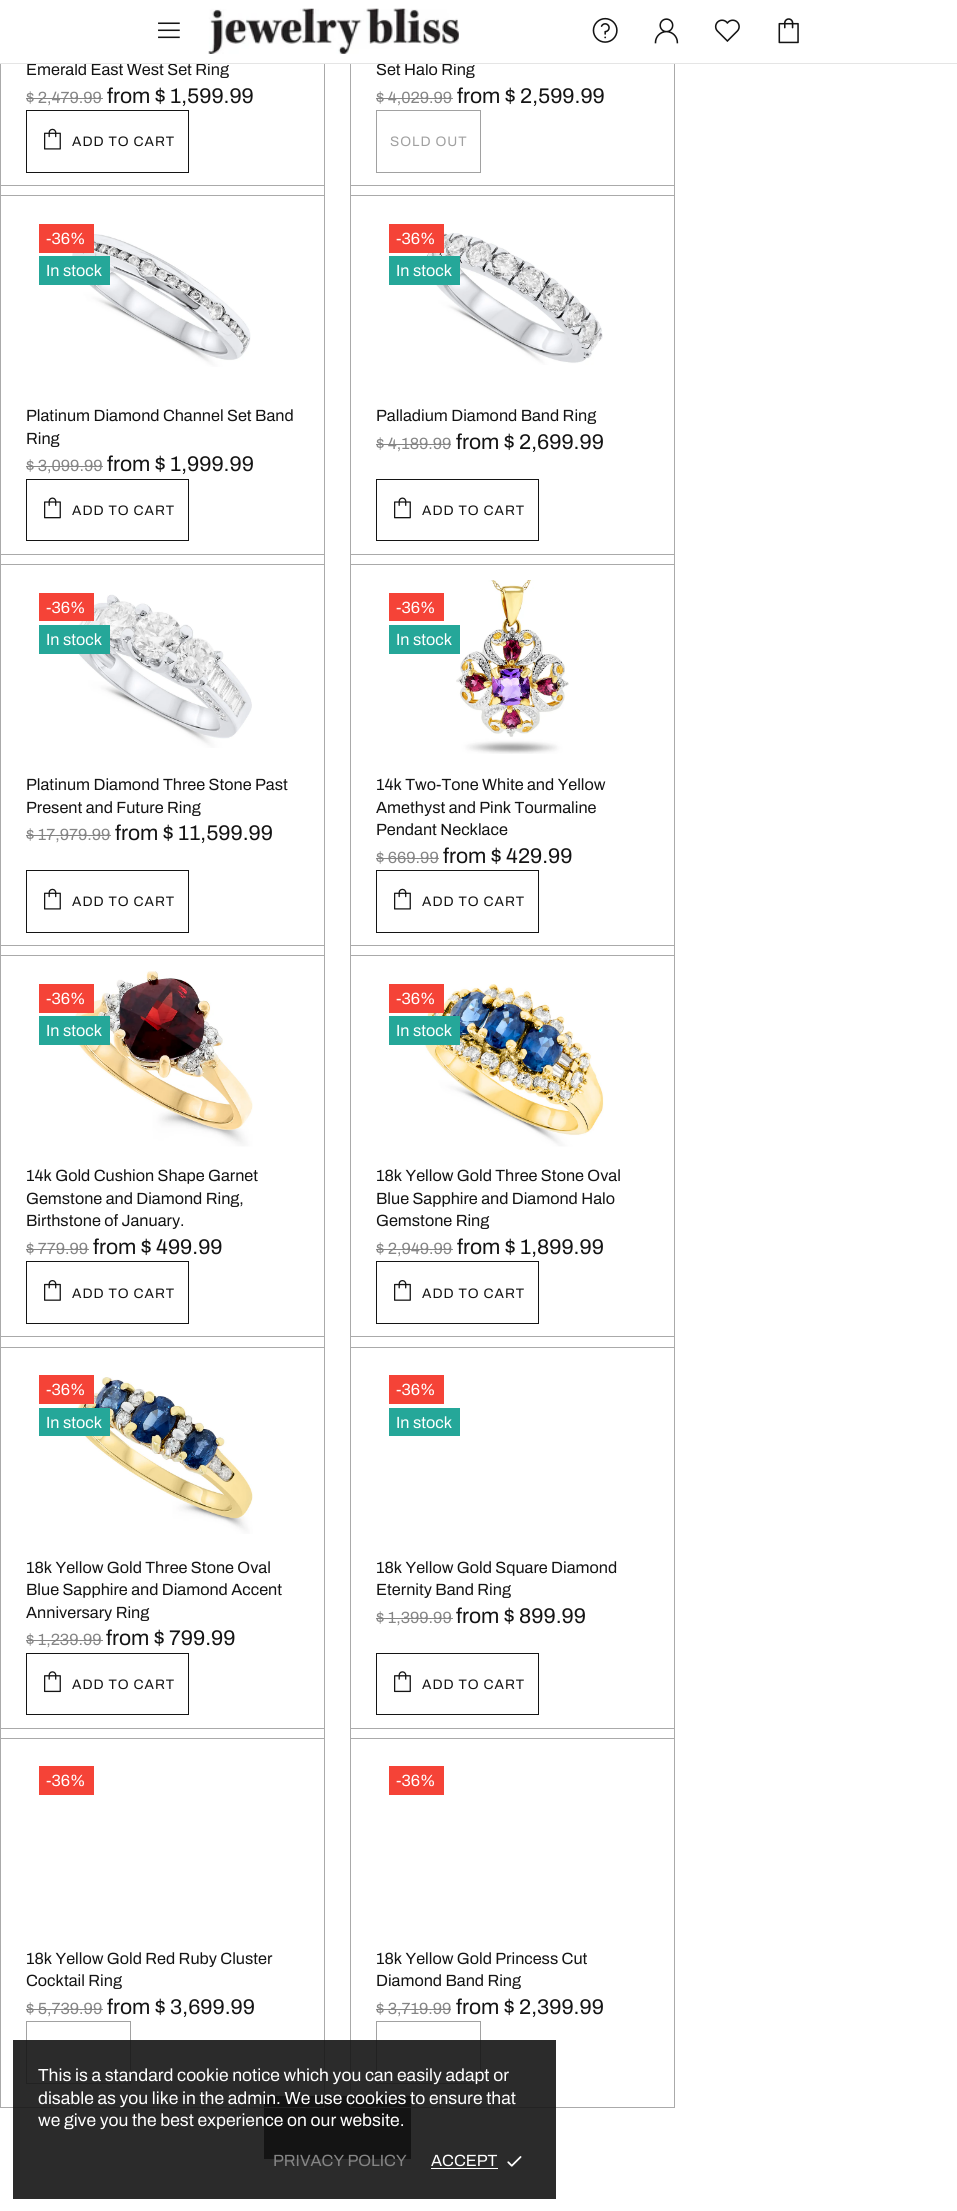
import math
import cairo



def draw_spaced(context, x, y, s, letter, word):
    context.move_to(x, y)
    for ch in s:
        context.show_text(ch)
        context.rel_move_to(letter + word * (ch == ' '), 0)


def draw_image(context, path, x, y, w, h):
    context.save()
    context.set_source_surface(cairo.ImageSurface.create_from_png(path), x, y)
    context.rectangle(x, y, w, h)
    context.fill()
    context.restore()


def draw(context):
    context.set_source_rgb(1, 1, 1)
    context.paint()
    context.rectangle(0.5, -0.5, 324, 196)
    context.set_source_rgb(170 / 255, 170 / 255, 170 / 255)
    context.set_line_width(1)
    context.stroke()
    context.rectangle(350.5, -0.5, 324, 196)
    context.stroke()
    context.set_source_rgb(1, 1, 1)
    context.rectangle(0, 0, 675, 63)
    context.fill()
    draw_image(context, "images/1.png", 158, 22, 22, 17)
    draw_image(context, "images/2.png", 208, 8, 251, 46)
    draw_image(context, "images/3.png", 592, 17, 26, 26)
    draw_image(context, "images/4.png", 654, 18, 25, 26)
    draw_image(context, "images/5.png", 714, 19, 26, 23)
    draw_image(context, "images/6.png", 778, 18, 21, 26)
    context.set_source_rgb(133 / 255, 133 / 255, 133 / 255)
    context.rectangle(26, 98, 77, 1)
    context.fill()
    context.rectangle(26.5, 110.5, 162, 62)
    context.set_source_rgb(20 / 255, 20 / 255, 20 / 255)
    context.stroke()
    draw_image(context, "images/7.png", 44, 128, 17, 22)
    context.set_source_rgb(133 / 255, 133 / 255, 133 / 255)
    context.rectangle(376, 98, 77, 1)
    context.fill()
    context.rectangle(376.5, 110.5, 104, 62)
    context.set_source_rgb(161 / 255, 161 / 255, 161 / 255)
    context.stroke()
    context.rectangle(0.5, 185.5, 324, 379)
    context.set_source_rgb(170 / 255, 170 / 255, 170 / 255)
    context.stroke()
    draw_image(context, "images/8.png", 72, 234, 179, 133)
    context.set_source_rgb(245 / 255, 67 / 255, 55 / 255)
    context.rectangle(39, 224, 55, 29)
    context.fill()
    context.set_source_rgb(37 / 255, 167 / 255, 153 / 255)
    context.rectangle(39, 256, 71, 29)
    context.fill()
    context.set_source_rgb(133 / 255, 133 / 255, 133 / 255)
    context.rectangle(26, 466, 77, 1)
    context.fill()
    context.rectangle(26.5, 479.5, 162, 61)
    context.set_source_rgb(20 / 255, 20 / 255, 20 / 255)
    context.stroke()
    draw_image(context, "images/9.png", 44, 497, 17, 22)
    context.rectangle(350.5, 185.5, 324, 379)
    context.set_source_rgb(170 / 255, 170 / 255, 170 / 255)
    context.stroke()
    draw_image(context, "images/10.png", 422, 233, 181, 132)
    context.set_source_rgb(245 / 255, 67 / 255, 55 / 255)
    context.rectangle(389, 224, 55, 29)
    context.fill()
    context.set_source_rgb(37 / 255, 167 / 255, 153 / 255)
    context.rectangle(389, 256, 71, 29)
    context.fill()
    context.set_source_rgb(133 / 255, 133 / 255, 133 / 255)
    context.rectangle(376, 444, 75, 1)
    context.fill()
    context.rectangle(376.5, 479.5, 162, 61)
    context.set_source_rgb(20 / 255, 20 / 255, 20 / 255)
    context.stroke()
    draw_image(context, "images/9.png", 394, 497, 17, 22)
    context.rectangle(0.5, 554.5, 324, 401)
    context.set_source_rgb(170 / 255, 170 / 255, 170 / 255)
    context.stroke()
    draw_image(context, "images/11.png", 72, 594, 180, 154)
    context.set_source_rgb(245 / 255, 67 / 255, 55 / 255)
    context.rectangle(39, 593, 55, 28)
    context.fill()
    context.set_source_rgb(37 / 255, 167 / 255, 153 / 255)
    context.rectangle(39, 625, 71, 29)
    context.fill()
    context.set_source_rgb(133 / 255, 133 / 255, 133 / 255)
    context.rectangle(26, 835, 85, 1)
    context.fill()
    context.rectangle(26.5, 870.5, 162, 62)
    context.set_source_rgb(20 / 255, 20 / 255, 20 / 255)
    context.stroke()
    draw_image(context, "images/7.png", 44, 888, 17, 22)
    context.rectangle(350.5, 554.5, 324, 401)
    context.set_source_rgb(170 / 255, 170 / 255, 170 / 255)
    context.stroke()
    context.set_source_rgb(245 / 255, 67 / 255, 55 / 255)
    context.rectangle(389, 593, 55, 28)
    context.fill()
    draw_image(context, "images/12.png", 456, 580, 113, 174)
    context.set_source_rgb(37 / 255, 167 / 255, 153 / 255)
    context.rectangle(389, 625, 71, 29)
    context.fill()
    context.set_source_rgb(133 / 255, 133 / 255, 133 / 255)
    context.rectangle(376, 858, 63, 1)
    context.fill()
    context.rectangle(376.5, 870.5, 162, 62)
    context.set_source_rgb(20 / 255, 20 / 255, 20 / 255)
    context.stroke()
    draw_image(context, "images/7.png", 394, 888, 17, 22)
    context.rectangle(0.5, 945.5, 324, 402)
    context.set_source_rgb(170 / 255, 170 / 255, 170 / 255)
    context.stroke()
    draw_image(context, "images/13.png", 71, 971, 182, 176)
    context.set_source_rgb(245 / 255, 67 / 255, 55 / 255)
    context.rectangle(39, 984, 55, 29)
    context.fill()
    context.set_source_rgb(37 / 255, 167 / 255, 153 / 255)
    context.rectangle(39, 1016, 71, 29)
    context.fill()
    context.set_source_rgb(133 / 255, 133 / 255, 133 / 255)
    context.rectangle(26, 1249, 63, 1)
    context.fill()
    context.rectangle(26.5, 1261.5, 162, 62)
    context.set_source_rgb(20 / 255, 20 / 255, 20 / 255)
    context.stroke()
    draw_image(context, "images/14.png", 44, 1280, 17, 21)
    context.rectangle(350.5, 945.5, 324, 402)
    context.set_source_rgb(170 / 255, 170 / 255, 170 / 255)
    context.stroke()
    draw_image(context, "images/15.png", 424, 984, 180, 163)
    context.set_source_rgb(245 / 255, 67 / 255, 55 / 255)
    context.rectangle(389, 984, 55, 29)
    context.fill()
    context.set_source_rgb(37 / 255, 167 / 255, 153 / 255)
    context.rectangle(389, 1016, 71, 29)
    context.fill()
    context.set_source_rgb(133 / 255, 133 / 255, 133 / 255)
    context.rectangle(376, 1249, 77, 1)
    context.fill()
    context.rectangle(376.5, 1261.5, 162, 62)
    context.set_source_rgb(20 / 255, 20 / 255, 20 / 255)
    context.stroke()
    draw_image(context, "images/14.png", 394, 1280, 17, 21)
    context.rectangle(0.5, 1336.5, 324, 402)
    context.set_source_rgb(170 / 255, 170 / 255, 170 / 255)
    context.stroke()
    draw_image(context, "images/16.png", 74, 1377, 179, 157)
    context.set_source_rgb(245 / 255, 67 / 255, 55 / 255)
    context.rectangle(39, 1375, 55, 29)
    context.fill()
    context.set_source_rgb(37 / 255, 167 / 255, 153 / 255)
    context.rectangle(39, 1408, 71, 28)
    context.fill()
    context.set_source_rgb(133 / 255, 133 / 255, 133 / 255)
    context.rectangle(26, 1640, 77, 1)
    context.fill()
    context.rectangle(26.5, 1653.5, 162, 61)
    context.set_source_rgb(20 / 255, 20 / 255, 20 / 255)
    context.stroke()
    draw_image(context, "images/17.png", 44, 1671, 17, 22)
    context.rectangle(350.5, 1336.5, 324, 402)
    context.set_source_rgb(170 / 255, 170 / 255, 170 / 255)
    context.stroke()
    context.set_source_rgb(245 / 255, 67 / 255, 55 / 255)
    context.rectangle(389, 1375, 55, 29)
    context.fill()
    context.set_source_rgb(37 / 255, 167 / 255, 153 / 255)
    context.rectangle(389, 1408, 71, 28)
    context.fill()
    context.set_source_rgb(133 / 255, 133 / 255, 133 / 255)
    context.rectangle(376, 1618, 77, 1)
    context.fill()
    context.rectangle(376.5, 1653.5, 162, 61)
    context.set_source_rgb(20 / 255, 20 / 255, 20 / 255)
    context.stroke()
    draw_image(context, "images/17.png", 394, 1671, 17, 22)
    context.rectangle(264, 2096, 147, 63)
    context.fill()
    context.rectangle(0.5, 1728.5, 324, 379)
    context.set_source_rgb(170 / 255, 170 / 255, 170 / 255)
    context.stroke()
    context.set_source_rgb(245 / 255, 67 / 255, 55 / 255)
    context.rectangle(39, 1766, 55, 29)
    context.fill()
    context.set_source_rgb(133 / 255, 133 / 255, 133 / 255)
    context.rectangle(26, 2009, 77, 1)
    context.fill()
    context.rectangle(26.5, 2021.5, 104, 62)
    context.set_source_rgb(161 / 255, 161 / 255, 161 / 255)
    context.stroke()
    context.rectangle(350.5, 1728.5, 324, 379)
    context.set_source_rgb(170 / 255, 170 / 255, 170 / 255)
    context.stroke()
    context.set_source_rgb(245 / 255, 67 / 255, 55 / 255)
    context.rectangle(389, 1766, 55, 29)
    context.fill()
    context.set_source_rgb(133 / 255, 133 / 255, 133 / 255)
    context.rectangle(376, 2009, 75, 1)
    context.fill()
    context.rectangle(376.5, 2021.5, 104, 62)
    context.set_source_rgb(161 / 255, 161 / 255, 161 / 255)
    context.stroke()
    context.set_source_rgba(20 / 255, 20 / 255, 20 / 255, 0.9)
    context.rectangle(13, 2040, 543, 159)
    context.fill()
    context.set_source_rgb(1, 1, 1)
    context.rectangle(431, 2168, 67, 1)
    context.fill()
    draw_image(context, "images/18.png", 507, 2156, 15, 11)
    context.select_font_face("Archivo")
    context.set_font_size(16.25)
    context.set_source_rgb(20 / 255, 20 / 255, 20 / 255)
    context.move_to(26, 75)
    context.show_text("Emerald East West Set Ring")
    context.set_source_rgb(133 / 255, 133 / 255, 133 / 255)
    context.move_to(26, 103)
    context.show_text("$ 2,479.99")
    context.set_font_size(21.25)
    context.set_source_rgb(20 / 255, 20 / 255, 20 / 255)
    context.move_to(107, 103)
    context.show_text("from $ 1,599.99")
    context.set_font_size(13.75)
    draw_spaced(context, 72, 146, "ADD TO CART", 1, 0)
    context.set_font_size(16.25)
    context.move_to(376, 75)
    context.show_text("Set Halo Ring")
    context.set_source_rgb(229 / 255, 229 / 255, 229 / 255)
    context.rectangle(0, 63, 957, 1)
    context.fill()
    context.set_source_rgb(133 / 255, 133 / 255, 133 / 255)
    context.move_to(376, 103)
    context.show_text("$ 4,029.99")
    context.set_font_size(21.25)
    context.set_source_rgb(20 / 255, 20 / 255, 20 / 255)
    context.move_to(457, 103)
    context.show_text("from $ 2,599.99")
    context.set_font_size(13.75)
    context.set_source_rgb(161 / 255, 161 / 255, 161 / 255)
    draw_spaced(context, 390, 146, "SOLD OUT", 1, 0)
    context.set_font_size(16.25)
    context.set_source_rgb(1, 1, 1)
    context.move_to(46, 244)
    context.show_text("-36%")
    context.move_to(46, 276)
    context.show_text("In stock")
    context.set_source_rgb(20 / 255, 20 / 255, 20 / 255)
    context.move_to(26, 421)
    context.show_text("Platinum Diamond Channel Set Band")
    context.move_to(26, 444)
    context.show_text("Ring")
    context.set_source_rgb(133 / 255, 133 / 255, 133 / 255)
    context.move_to(26, 471)
    context.show_text("$ 3,099.99")
    context.set_font_size(21.25)
    context.set_source_rgb(20 / 255, 20 / 255, 20 / 255)
    context.move_to(107, 471)
    context.show_text("from $ 1,999.99")
    context.set_font_size(13.75)
    draw_spaced(context, 72, 515, "ADD TO CART", 1, 0)
    context.set_font_size(16.25)
    context.set_source_rgb(1, 1, 1)
    context.move_to(396, 244)
    context.show_text("-36%")
    context.move_to(396, 276)
    context.show_text("In stock")
    context.set_source_rgb(20 / 255, 20 / 255, 20 / 255)
    context.move_to(376, 421)
    context.show_text("Palladium Diamond Band Ring")
    context.set_source_rgb(133 / 255, 133 / 255, 133 / 255)
    context.move_to(376, 449)
    context.show_text("$ 4,189.99")
    context.set_font_size(21.25)
    context.set_source_rgb(20 / 255, 20 / 255, 20 / 255)
    context.move_to(456, 449)
    context.show_text("from $ 2,699.99")
    context.set_font_size(13.75)
    draw_spaced(context, 422, 515, "ADD TO CART", 1, 0)
    context.set_font_size(16.25)
    context.set_source_rgb(1, 1, 1)
    context.move_to(46, 613)
    context.show_text("-36%")
    context.move_to(46, 645)
    context.show_text("In stock")
    context.set_source_rgb(20 / 255, 20 / 255, 20 / 255)
    context.move_to(26, 790)
    context.show_text("Platinum Diamond Three Stone Past")
    context.move_to(26, 813)
    context.show_text("Present and Future Ring")
    context.set_source_rgb(133 / 255, 133 / 255, 133 / 255)
    context.move_to(26, 840)
    context.show_text("$ 17,979.99")
    context.set_font_size(21.25)
    context.set_source_rgb(20 / 255, 20 / 255, 20 / 255)
    context.move_to(115, 840)
    context.show_text("from $ 11,599.99")
    context.set_font_size(13.75)
    draw_spaced(context, 72, 906, "ADD TO CART", 1, 0)
    context.set_font_size(16.25)
    context.set_source_rgb(1, 1, 1)
    context.move_to(396, 613)
    context.show_text("-36%")
    context.move_to(396, 645)
    context.show_text("In stock")
    context.set_source_rgb(20 / 255, 20 / 255, 20 / 255)
    context.move_to(376, 790)
    context.show_text("14k Two-Tone White and Yellow")
    context.move_to(376, 813)
    context.show_text("Amethyst and Pink Tourmaline")
    context.move_to(376, 835)
    context.show_text("Pendant Necklace")
    context.set_source_rgb(133 / 255, 133 / 255, 133 / 255)
    context.move_to(376, 863)
    context.show_text("$ 669.99")
    context.set_font_size(21.25)
    context.set_source_rgb(20 / 255, 20 / 255, 20 / 255)
    context.move_to(443, 863)
    context.show_text("from $ 429.99")
    context.set_font_size(13.75)
    draw_spaced(context, 422, 906, "ADD TO CART", 1, 0)
    context.set_font_size(16.25)
    context.set_source_rgb(1, 1, 1)
    context.move_to(46, 1004)
    context.show_text("-36%")
    context.move_to(46, 1036)
    context.show_text("In stock")
    context.set_source_rgb(20 / 255, 20 / 255, 20 / 255)
    context.move_to(26, 1181)
    context.show_text("14k Gold Cushion Shape Garnet")
    context.move_to(26, 1204)
    context.show_text("Gemstone and Diamond Ring,")
    context.move_to(26, 1226)
    context.show_text("Birthstone of January.")
    context.set_source_rgb(133 / 255, 133 / 255, 133 / 255)
    context.move_to(26, 1254)
    context.show_text("$ 779.99")
    context.set_font_size(21.25)
    context.set_source_rgb(20 / 255, 20 / 255, 20 / 255)
    context.move_to(93, 1254)
    context.show_text("from $ 499.99")
    context.set_font_size(13.75)
    draw_spaced(context, 72, 1298, "ADD TO CART", 1, 0)
    context.set_font_size(16.25)
    context.set_source_rgb(1, 1, 1)
    context.move_to(396, 1004)
    context.show_text("-36%")
    context.move_to(396, 1036)
    context.show_text("In stock")
    context.set_source_rgb(20 / 255, 20 / 255, 20 / 255)
    context.move_to(376, 1181)
    context.show_text("18k Yellow Gold Three Stone Oval")
    context.move_to(376, 1204)
    context.show_text("Blue Sapphire and Diamond Halo")
    context.move_to(376, 1226)
    context.show_text("Gemstone Ring")
    context.set_source_rgb(133 / 255, 133 / 255, 133 / 255)
    context.move_to(376, 1254)
    context.show_text("$ 2,949.99")
    context.set_font_size(21.25)
    context.set_source_rgb(20 / 255, 20 / 255, 20 / 255)
    context.move_to(457, 1254)
    context.show_text("from $ 1,899.99")
    context.set_font_size(13.75)
    draw_spaced(context, 422, 1298, "ADD TO CART", 1, 0)
    context.set_font_size(16.25)
    context.set_source_rgb(1, 1, 1)
    context.move_to(46, 1395)
    context.show_text("-36%")
    context.move_to(46, 1428)
    context.show_text("In stock")
    context.set_source_rgb(20 / 255, 20 / 255, 20 / 255)
    context.move_to(26, 1573)
    context.show_text("18k Yellow Gold Three Stone Oval")
    context.move_to(26, 1595)
    context.show_text("Blue Sapphire and Diamond Accent")
    context.move_to(26, 1618)
    context.show_text("Anniversary Ring")
    context.set_source_rgb(133 / 255, 133 / 255, 133 / 255)
    context.move_to(26, 1645)
    context.show_text("$ 1,239.99")
    context.set_font_size(21.25)
    context.set_source_rgb(20 / 255, 20 / 255, 20 / 255)
    context.move_to(106, 1645)
    context.show_text("from $ 799.99")
    context.set_font_size(13.75)
    draw_spaced(context, 72, 1689, "ADD TO CART", 1, 0)
    context.set_font_size(16.25)
    context.set_source_rgb(1, 1, 1)
    context.move_to(396, 1395)
    context.show_text("-36%")
    context.move_to(396, 1428)
    context.show_text("In stock")
    context.set_source_rgb(20 / 255, 20 / 255, 20 / 255)
    context.move_to(376, 1573)
    context.show_text("18k Yellow Gold Square Diamond")
    context.move_to(376, 1595)
    context.show_text("Eternity Band Ring")
    context.set_source_rgb(133 / 255, 133 / 255, 133 / 255)
    context.move_to(376, 1623)
    context.show_text("$ 1,399.99")
    context.set_font_size(21.25)
    context.set_source_rgb(20 / 255, 20 / 255, 20 / 255)
    context.move_to(456, 1623)
    context.show_text("from $ 899.99")
    context.set_font_size(13.75)
    draw_spaced(context, 422, 1689, "ADD TO CART", 1, 0)
    context.set_font_size(16.25)
    context.set_source_rgb(1, 1, 1)
    context.move_to(46, 1786)
    context.show_text("-36%")
    context.set_source_rgb(20 / 255, 20 / 255, 20 / 255)
    context.move_to(26, 1964)
    context.show_text("18k Yellow Gold Red Ruby Cluster")
    context.move_to(26, 1986)
    context.show_text("Cocktail Ring")
    context.set_source_rgb(133 / 255, 133 / 255, 133 / 255)
    context.move_to(26, 2014)
    context.show_text("$ 5,739.99")
    context.set_font_size(21.25)
    context.set_source_rgb(20 / 255, 20 / 255, 20 / 255)
    context.move_to(107, 2014)
    context.show_text("from $ 3,699.99")
    context.set_font_size(16.25)
    context.set_source_rgb(1, 1, 1)
    context.move_to(396, 1786)
    context.show_text("-36%")
    context.set_source_rgb(20 / 255, 20 / 255, 20 / 255)
    context.move_to(376, 1964)
    context.show_text("18k Yellow Gold Princess Cut")
    context.move_to(376, 1986)
    context.show_text("Diamond Band Ring")
    context.set_source_rgb(133 / 255, 133 / 255, 133 / 255)
    context.move_to(376, 2014)
    context.show_text("$ 3,719.99")
    context.set_font_size(21.25)
    context.set_source_rgb(20 / 255, 20 / 255, 20 / 255)
    context.move_to(456, 2014)
    context.show_text("from $ 2,399.99")
    context.set_font_size(17.5)
    context.set_source_rgb(1, 1, 1)
    context.move_to(38, 2081)
    context.show_text("This is a standard cookie notice which you can easily adapt or")
    context.move_to(38, 2104)
    context.show_text("disable as you like in the admin. We use cookies to ensure that")
    context.move_to(38, 2126)
    context.show_text("we give you the best experience on our website.")
    context.set_font_size(16.25)
    context.set_source_rgb(133 / 255, 133 / 255, 133 / 255)
    context.move_to(273, 2166)
    context.show_text("PRIVACY POLICY")
    context.set_source_rgb(1, 1, 1)
    context.move_to(431, 2166)
    context.show_text("ACCEPT")


surface = cairo.ImageSurface(cairo.Format.RGB24, 957, 2211)
context = cairo.Context(surface)
options = cairo.FontOptions()
options.set_hint_metrics(cairo.HintMetrics.OFF)
options.set_hint_style(cairo.HintStyle.NONE)
context.set_font_options(options)
context.set_miter_limit(4)
draw(context)
surface.write_to_png("out.png")
